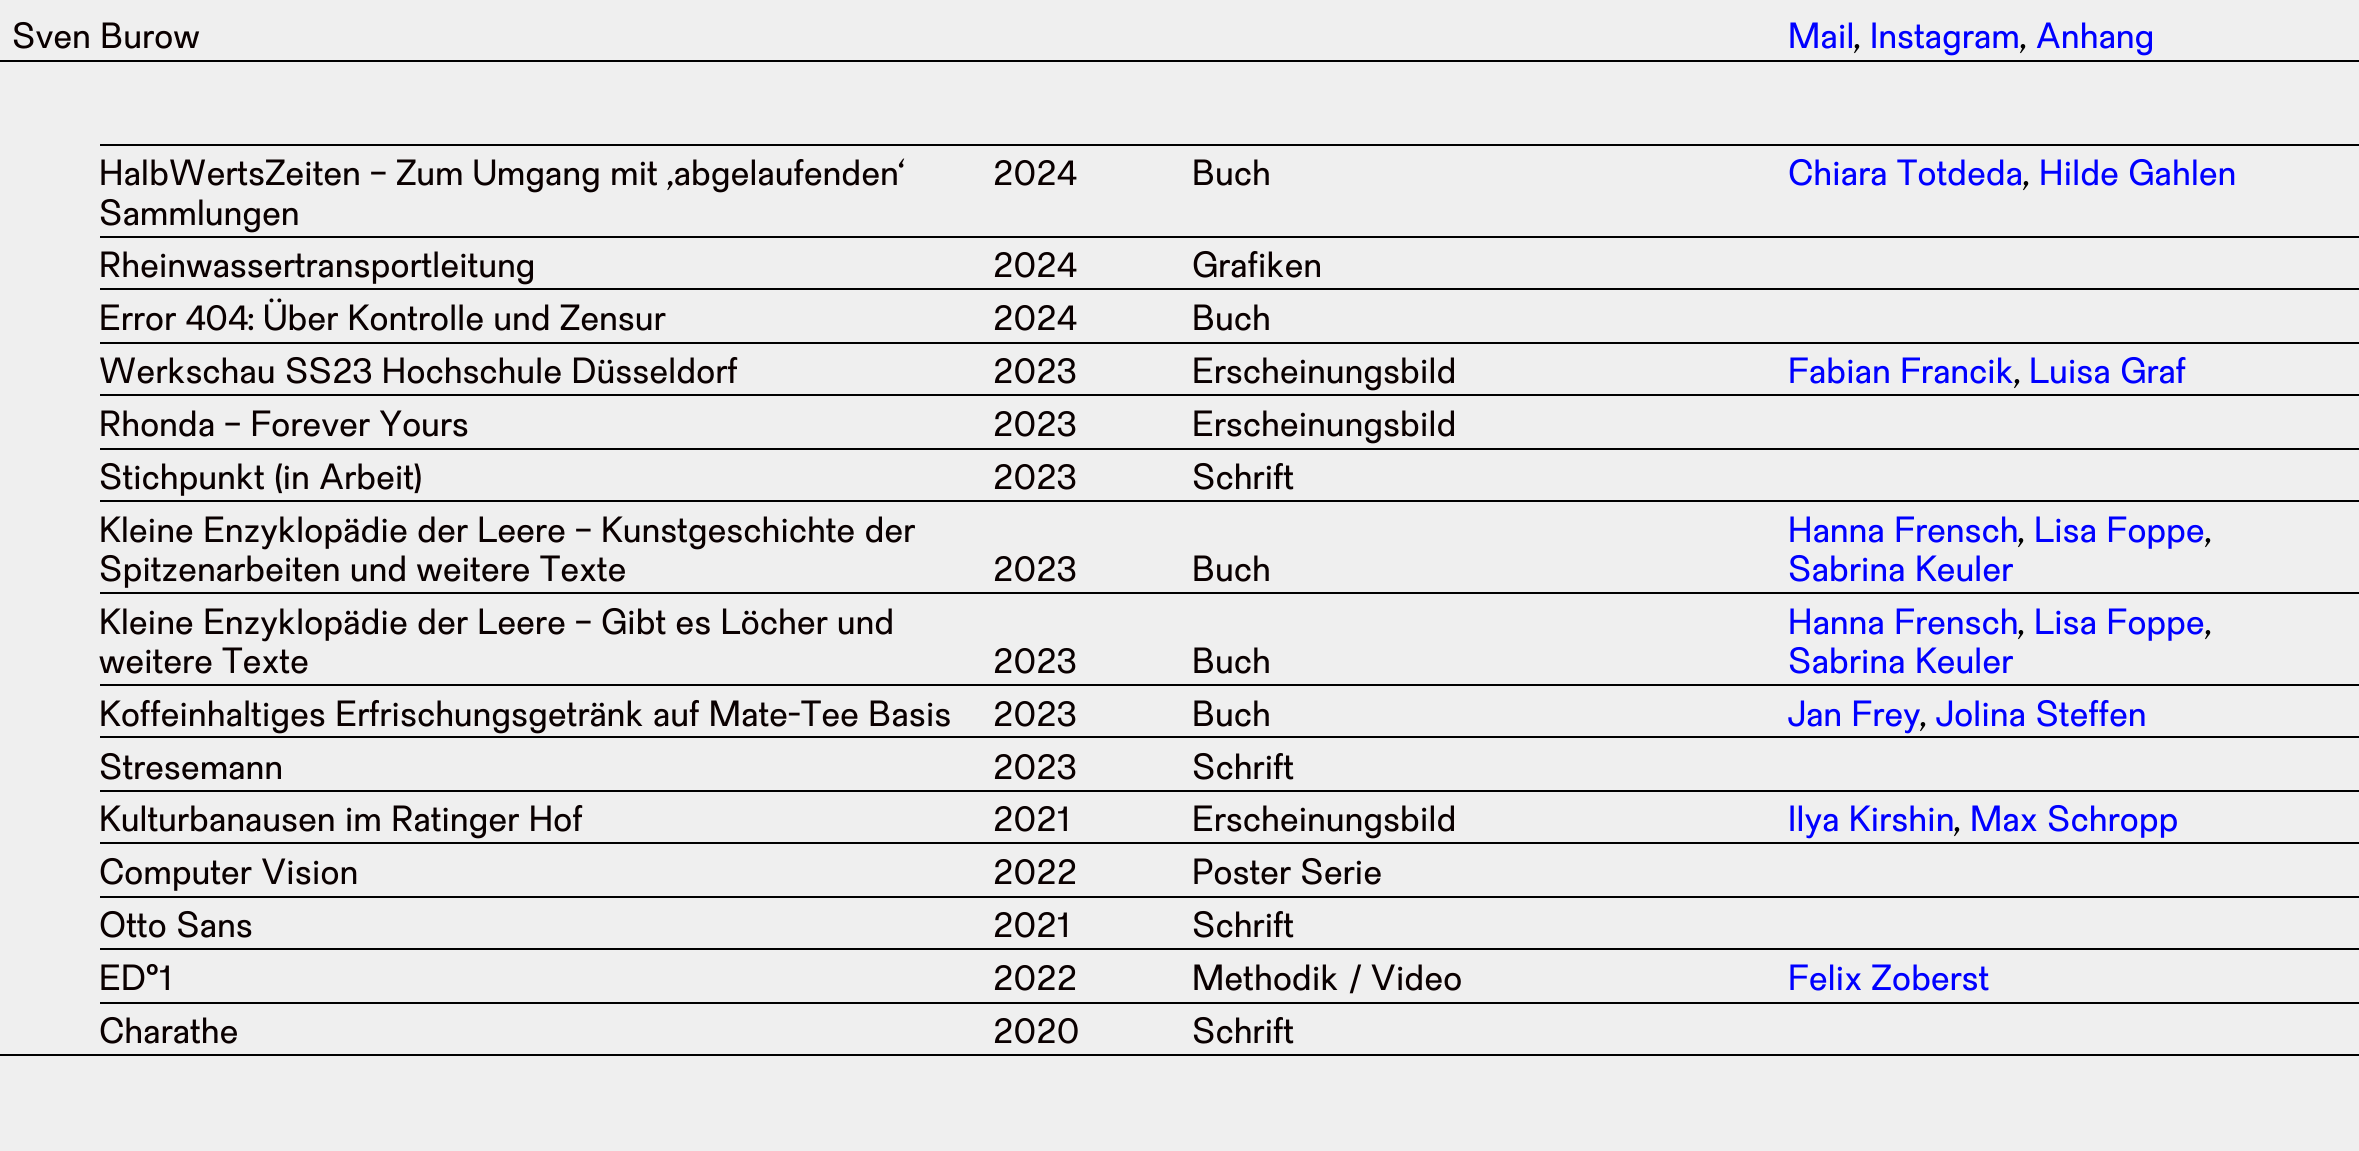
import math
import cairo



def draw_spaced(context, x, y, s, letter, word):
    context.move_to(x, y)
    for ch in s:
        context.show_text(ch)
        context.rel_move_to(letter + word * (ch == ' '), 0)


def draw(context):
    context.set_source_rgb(239 / 255, 239 / 255, 239 / 255)
    context.paint()
    context.set_source_rgb(0, 0, 0)
    context.rectangle(0, 60, 2359, 2)
    context.fill()
    context.rectangle(100, 144, 2259, 2)
    context.fill()
    context.rectangle(100, 236, 2259, 2)
    context.fill()
    context.rectangle(100, 288, 2259, 2)
    context.fill()
    context.rectangle(100, 342, 2259, 2)
    context.fill()
    context.rectangle(100, 394, 2259, 2)
    context.fill()
    context.rectangle(100, 448, 2259, 2)
    context.fill()
    context.rectangle(100, 500, 2259, 2)
    context.fill()
    context.rectangle(100, 592, 2259, 2)
    context.fill()
    context.rectangle(100, 684, 2259, 2)
    context.fill()
    context.rectangle(100, 736, 2259, 2)
    context.fill()
    context.rectangle(100, 790, 2259, 2)
    context.fill()
    context.rectangle(100, 842, 2259, 2)
    context.fill()
    context.rectangle(100, 896, 2259, 2)
    context.fill()
    context.rectangle(100, 948, 2259, 2)
    context.fill()
    context.rectangle(100, 1002, 2259, 2)
    context.fill()
    context.rectangle(0, 1054, 2359, 2)
    context.fill()
    context.select_font_face("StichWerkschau")
    context.set_font_size(34)
    context.set_source_rgb(10 / 255, 0, 0)
    draw_spaced(context, 12, 48, "Sven Burow", 0.35, 0)
    context.set_source_rgb(0, 0, 1)
    draw_spaced(context, 1788, 48, "Mail", 0.35, 0)
    context.set_source_rgb(0, 0, 0)
    draw_spaced(context, 1854, 48, ",", 0.35, 0)
    context.set_source_rgb(0, 0, 1)
    draw_spaced(context, 1870, 48, "Instagram", 0.35, 0)
    context.set_source_rgb(0, 0, 0)
    draw_spaced(context, 2020, 48, ",", 0.35, 0)
    context.set_source_rgb(0, 0, 1)
    draw_spaced(context, 2036, 48, "Anhang", 0.35, 0)
    context.set_source_rgb(10 / 255, 0, 0)
    draw_spaced(context, 99, 185, "HalbWertsZeiten – Zum Umgang mit ‚abgelaufenden‘", 0.35, 0)
    draw_spaced(context, 99, 225, "Sammlungen", 0.35, 0)
    draw_spaced(context, 993, 185, "2024", 0.35, 0)
    draw_spaced(context, 1192, 185, "Buch", 0.35, 0)
    context.set_source_rgb(0, 0, 1)
    draw_spaced(context, 1788, 185, "Chiara Totdeda", 0.35, 0)
    context.set_source_rgb(0, 0, 0)
    draw_spaced(context, 2023, 185, ",", 0.35, 0)
    context.set_source_rgb(0, 0, 1)
    draw_spaced(context, 2039, 185, "Hilde Gahlen", 0.35, 0)
    context.set_source_rgb(10 / 255, 0, 0)
    draw_spaced(context, 99, 277, "Rheinwassertransportleitung", 0.35, 0)
    draw_spaced(context, 993, 277, "2024", 0.35, 0)
    draw_spaced(context, 1192, 277, "Grafiken", 0.35, 0)
    draw_spaced(context, 99, 330, "Error 404: Über Kontrolle und Zensur", 0.35, 0)
    draw_spaced(context, 993, 330, "2024", 0.35, 0)
    draw_spaced(context, 1192, 330, "Buch", 0.35, 0)
    draw_spaced(context, 99, 383, "Werkschau SS23 Hochschule Düsseldorf", 0.35, 0)
    draw_spaced(context, 993, 383, "2023", 0.35, 0)
    draw_spaced(context, 1192, 383, "Erscheinungsbild", 0.35, 0)
    context.set_source_rgb(0, 0, 1)
    draw_spaced(context, 1788, 383, "Fabian Francik", 0.35, 0)
    context.set_source_rgb(0, 0, 0)
    draw_spaced(context, 2014, 383, ",", 0.35, 0)
    context.set_source_rgb(0, 0, 1)
    draw_spaced(context, 2029, 383, "Luisa Graf", 0.35, 0)
    context.set_source_rgb(10 / 255, 0, 0)
    draw_spaced(context, 99, 436, "Rhonda – Forever Yours", 0.35, 0)
    draw_spaced(context, 993, 436, "2023", 0.35, 0)
    draw_spaced(context, 1192, 436, "Erscheinungsbild", 0.35, 0)
    draw_spaced(context, 99, 489, "Stichpunkt (in Arbeit)", 0.35, 0)
    draw_spaced(context, 993, 489, "2023", 0.35, 0)
    draw_spaced(context, 1192, 489, "Schrift", 0.35, 0)
    draw_spaced(context, 99, 542, "Kleine Enzyklopädie der Leere – Kunstgeschichte der", 0.35, 0)
    draw_spaced(context, 99, 581, "Spitzenarbeiten und weitere Texte", 0.35, 0)
    draw_spaced(context, 993, 581, "2023", 0.35, 0)
    draw_spaced(context, 1192, 581, "Buch", 0.35, 0)
    context.set_source_rgb(0, 0, 1)
    draw_spaced(context, 1788, 542, "Hanna Frensch", 0.35, 0)
    context.set_source_rgb(0, 0, 0)
    draw_spaced(context, 2018, 542, ",", 0.35, 0)
    context.set_source_rgb(0, 0, 1)
    draw_spaced(context, 2034, 542, "Lisa Foppe", 0.35, 0)
    context.set_source_rgb(0, 0, 0)
    draw_spaced(context, 2205, 542, ",", 0.35, 0)
    context.set_source_rgb(0, 0, 1)
    draw_spaced(context, 1788, 581, "Sabrina Keuler", 0.35, 0)
    context.set_source_rgb(10 / 255, 0, 0)
    draw_spaced(context, 99, 634, "Kleine Enzyklopädie der Leere – Gibt es Löcher und", 0.35, 0)
    draw_spaced(context, 99, 673, "weitere Texte", 0.35, 0)
    draw_spaced(context, 993, 673, "2023", 0.35, 0)
    draw_spaced(context, 1192, 673, "Buch", 0.35, 0)
    context.set_source_rgb(0, 0, 1)
    draw_spaced(context, 1788, 634, "Hanna Frensch", 0.35, 0)
    context.set_source_rgb(0, 0, 0)
    draw_spaced(context, 2018, 634, ",", 0.35, 0)
    context.set_source_rgb(0, 0, 1)
    draw_spaced(context, 2034, 634, "Lisa Foppe", 0.35, 0)
    context.set_source_rgb(0, 0, 0)
    draw_spaced(context, 2205, 634, ",", 0.35, 0)
    context.set_source_rgb(0, 0, 1)
    draw_spaced(context, 1788, 673, "Sabrina Keuler", 0.35, 0)
    context.set_source_rgb(10 / 255, 0, 0)
    draw_spaced(context, 99, 726, "Koffeinhaltiges Erfrischungsgetränk auf Mate-Tee Basis", 0.35, 0)
    draw_spaced(context, 993, 726, "2023", 0.35, 0)
    draw_spaced(context, 1192, 726, "Buch", 0.35, 0)
    context.set_source_rgb(0, 0, 1)
    draw_spaced(context, 1788, 726, "Jan Frey", 0.35, 0)
    context.set_source_rgb(0, 0, 0)
    draw_spaced(context, 1920, 726, ",", 0.35, 0)
    context.set_source_rgb(0, 0, 1)
    draw_spaced(context, 1936, 726, "Jolina Steffen", 0.35, 0)
    context.set_source_rgb(10 / 255, 0, 0)
    draw_spaced(context, 99, 779, "Stresemann", 0.35, 0)
    draw_spaced(context, 993, 779, "2023", 0.35, 0)
    draw_spaced(context, 1192, 779, "Schrift", 0.35, 0)
    draw_spaced(context, 99, 831, "Kulturbanausen im Ratinger Hof", 0.35, 0)
    draw_spaced(context, 993, 831, "2021", 0.35, 0)
    draw_spaced(context, 1192, 831, "Erscheinungsbild", 0.35, 0)
    context.set_source_rgb(0, 0, 1)
    draw_spaced(context, 1788, 831, "Ilya Kirshin", 0.35, 0)
    context.set_source_rgb(0, 0, 0)
    draw_spaced(context, 1954, 831, ",", 0.35, 0)
    context.set_source_rgb(0, 0, 1)
    draw_spaced(context, 1970, 831, "Max Schropp", 0.35, 0)
    context.set_source_rgb(10 / 255, 0, 0)
    draw_spaced(context, 99, 884, "Computer Vision", 0.35, 0)
    draw_spaced(context, 993, 884, "2022", 0.35, 0)
    draw_spaced(context, 1192, 884, "Poster Serie", 0.35, 0)
    draw_spaced(context, 99, 937, "Otto Sans", 0.35, 0)
    draw_spaced(context, 993, 937, "2021", 0.35, 0)
    draw_spaced(context, 1192, 937, "Schrift", 0.35, 0)
    draw_spaced(context, 99, 990, "ED°1", 0.35, 0)
    draw_spaced(context, 993, 990, "2022", 0.35, 0)
    draw_spaced(context, 1192, 990, "Methodik / Video", 0.35, 0)
    context.set_source_rgb(0, 0, 1)
    draw_spaced(context, 1788, 990, "Felix Zoberst", 0.35, 0)
    context.set_source_rgb(10 / 255, 0, 0)
    draw_spaced(context, 99, 1043, "Charathe", 0.35, 0)
    draw_spaced(context, 993, 1043, "2020", 0.35, 0)
    draw_spaced(context, 1192, 1043, "Schrift", 0.35, 0)


surface = cairo.ImageSurface(cairo.Format.RGB24, 2359, 1151)
context = cairo.Context(surface)
options = cairo.FontOptions()
options.set_hint_metrics(cairo.HintMetrics.OFF)
options.set_hint_style(cairo.HintStyle.NONE)
context.set_font_options(options)
context.set_miter_limit(4)
draw(context)
surface.write_to_png("out.png")
